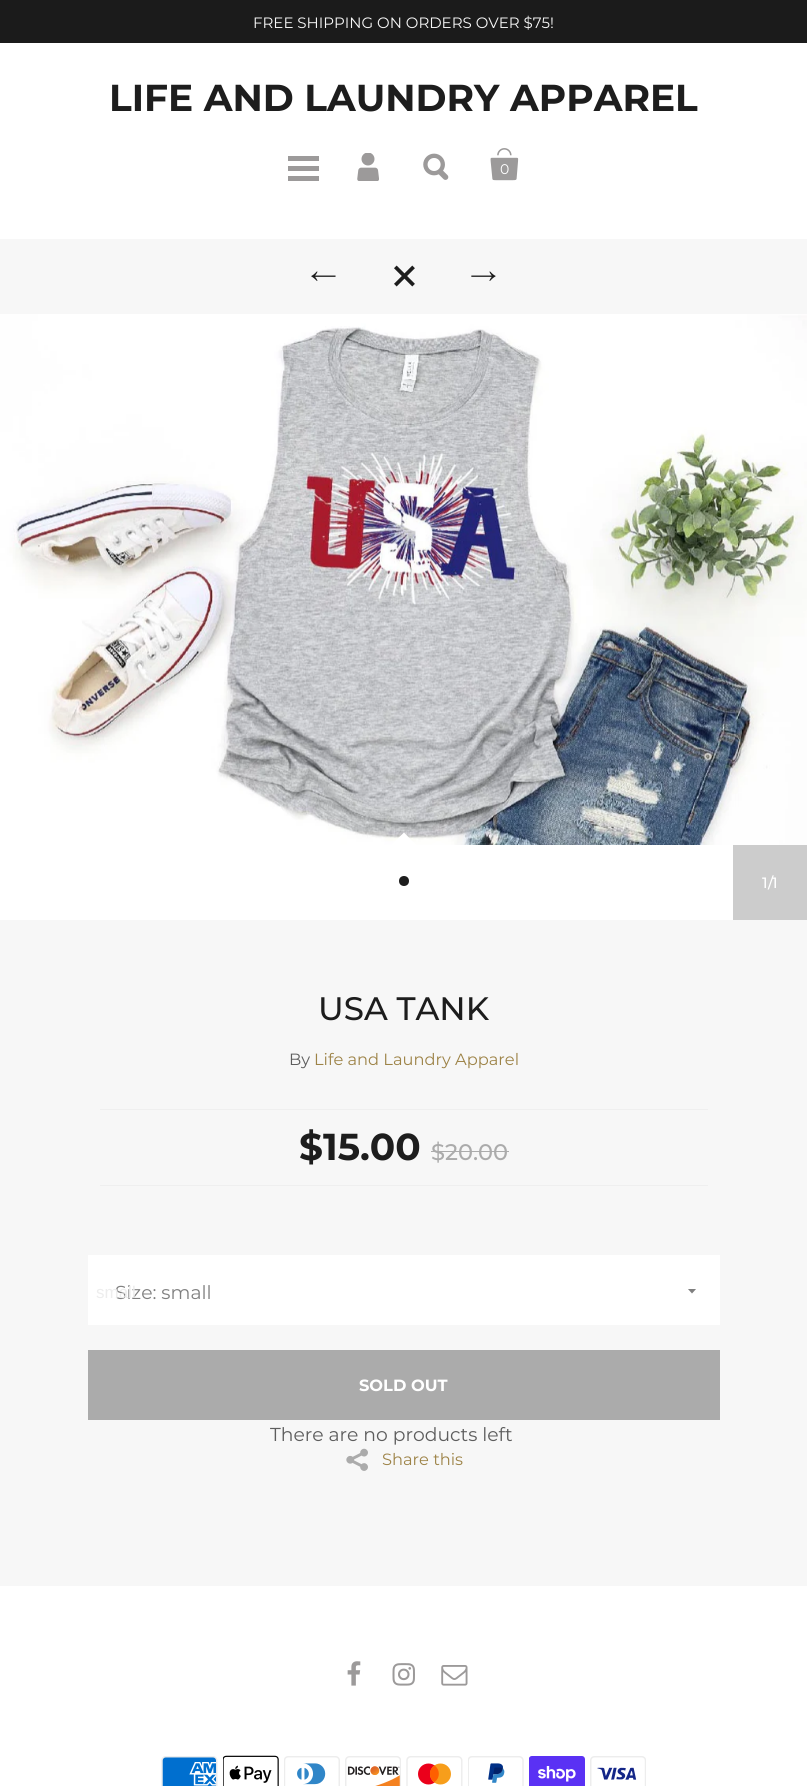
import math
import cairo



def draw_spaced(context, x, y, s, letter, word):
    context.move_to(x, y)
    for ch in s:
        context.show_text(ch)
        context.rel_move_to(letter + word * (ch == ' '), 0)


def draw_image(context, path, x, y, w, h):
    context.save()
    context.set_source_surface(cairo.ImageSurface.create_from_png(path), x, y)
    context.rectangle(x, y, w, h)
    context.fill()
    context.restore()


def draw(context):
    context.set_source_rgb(247 / 255, 247 / 255, 247 / 255)
    context.paint()
    context.set_source_rgb(27 / 255, 27 / 255, 27 / 255)
    context.rectangle(0, 0, 807, 43)
    context.fill()
    context.set_source_rgb(1, 1, 1)
    context.rectangle(0, 43, 807, 196)
    context.fill()
    context.set_source_rgb(156 / 255, 154 / 255, 154 / 255)
    context.rectangle(288, 156, 31, 5)
    context.fill()
    context.rectangle(288, 166, 31, 5)
    context.fill()
    context.rectangle(288, 176, 31, 5)
    context.fill()
    draw_image(context, "images/1.png", 357, 153, 22, 28)
    draw_image(context, "images/2.png", 423, 153, 26, 27)
    draw_image(context, "images/3.png", 490, 148, 29, 33)
    draw_image(context, "images/4.png", 311, 271, 25, 10)
    draw_image(context, "images/5.png", 394, 265, 21, 22)
    draw_image(context, "images/6.png", 471, 271, 25, 10)
    draw_image(context, "images/7.png", 0, 314, 807, 531)
    context.set_source_rgb(1, 1, 1)
    context.rectangle(0, 845, 733, 75)
    context.fill()
    context.new_path()
    context.move_to(416, 845)
    context.line_to(391, 845)
    context.line_to(404, 832.5)
    context.close_path()
    context.fill()
    context.set_source_rgb(29 / 255, 29 / 255, 29 / 255)
    context.arc(404, 881, 5, 0, 2 * math.pi)
    context.fill()
    context.set_source_rgb(204 / 255, 204 / 255, 204 / 255)
    context.rectangle(733, 845, 74, 75)
    context.fill()
    context.set_source_rgb(239 / 255, 239 / 255, 239 / 255)
    context.rectangle(100, 1109, 608, 1)
    context.fill()
    context.rectangle(100, 1185, 608, 1)
    context.fill()
    context.set_source_rgb(171 / 255, 171 / 255, 171 / 255)
    context.rectangle(431, 1151, 78, 1)
    context.fill()
    context.set_source_rgb(1, 1, 1)
    context.rectangle(88, 1255, 632, 70)
    context.fill()
    context.save()
    context.rectangle(688, 1289, 8, 5)
    context.clip()
    context.set_source_rgb(127 / 255, 127 / 255, 127 / 255)
    context.new_path()
    context.move_to(696.5, 1288.5)
    context.line_to(692, 1293.5)
    context.line_to(687.5, 1288.5)
    context.close_path()
    context.fill()
    context.restore()
    context.set_source_rgb(171 / 255, 171 / 255, 171 / 255)
    context.rectangle(88, 1350, 632, 70)
    context.fill()
    draw_image(context, "images/8.png", 346, 1448, 22, 23)
    context.set_source_rgb(1, 1, 1)
    context.rectangle(0, 1586, 807, 200)
    context.fill()
    draw_image(context, "images/9.png", 347, 1661, 14, 25)
    draw_image(context, "images/10.png", 392, 1663, 23, 23)
    draw_image(context, "images/11.png", 441, 1665, 27, 21)
    draw_image(context, "images/12.png", 161, 1756, 57, 30)
    draw_image(context, "images/13.png", 223, 1755, 56, 31)
    draw_image(context, "images/14.png", 284, 1756, 56, 30)
    draw_image(context, "images/15.png", 345, 1756, 56, 30)
    draw_image(context, "images/16.png", 406, 1756, 57, 30)
    draw_image(context, "images/17.png", 468, 1756, 56, 30)
    draw_image(context, "images/18.png", 529, 1756, 56, 30)
    draw_image(context, "images/19.png", 590, 1756, 56, 30)
    context.select_font_face("Montserrat")
    context.set_font_size(15)
    context.set_source_rgb(247 / 255, 247 / 255, 247 / 255)
    context.move_to(253, 28)
    context.show_text("FREE SHIPPING ON ORDERS OVER $75!")
    context.select_font_face("Montserrat", cairo.FontSlant.NORMAL, cairo.FontWeight.BOLD)
    context.set_font_size(37.5)
    context.set_source_rgb(29 / 255, 29 / 255, 29 / 255)
    context.move_to(109, 111)
    context.show_text("LIFE AND LAUNDRY APPAREL")
    context.select_font_face("Montserrat")
    context.set_font_size(14)
    context.set_source_rgb(1, 1, 1)
    context.move_to(500, 174)
    context.show_text("0")
    context.select_font_face("Montserrat Medium")
    context.set_font_size(15)
    context.move_to(762, 888)
    context.show_text("1")
    draw_spaced(context, 768, 888, "/", -2, 0)
    context.move_to(772, 888)
    context.show_text("1")
    context.set_font_size(32.5)
    context.set_source_rgb(29 / 255, 29 / 255, 29 / 255)
    context.move_to(318, 1020)
    context.show_text("USA TANK")
    context.select_font_face("Montserrat")
    context.set_font_size(16.25)
    context.set_source_rgb(93 / 255, 93 / 255, 93 / 255)
    context.move_to(289, 1065)
    context.show_text("By")
    context.set_source_rgb(157 / 255, 131 / 255, 71 / 255)
    context.move_to(314, 1065)
    context.show_text("Life and Laundry Apparel")
    context.select_font_face("Montserrat", cairo.FontSlant.NORMAL, cairo.FontWeight.BOLD)
    context.set_font_size(37.5)
    context.set_source_rgb(29 / 255, 29 / 255, 29 / 255)
    context.move_to(299, 1160)
    context.show_text("$15.00")
    context.select_font_face("Montserrat Medium")
    context.set_font_size(22.5)
    context.set_source_rgb(171 / 255, 171 / 255, 171 / 255)
    context.move_to(431, 1160)
    context.show_text("$20.00")
    context.select_font_face("Montserrat")
    context.set_font_size(18.75)
    context.set_source_rgb(127 / 255, 127 / 255, 127 / 255)
    context.move_to(115, 1299)
    context.show_text("Size: small")
    context.select_font_face("Liberation Sans")
    context.set_font_size(17)
    context.set_source_rgb(237 / 255, 237 / 255, 237 / 255)
    context.move_to(96, 1298)
    context.show_text("small")
    context.select_font_face("Montserrat", cairo.FontSlant.NORMAL, cairo.FontWeight.BOLD)
    context.set_font_size(16.25)
    context.set_source_rgb(1, 1, 1)
    context.move_to(359, 1391)
    context.show_text("SOLD OUT")
    context.select_font_face("Montserrat")
    context.set_font_size(18.75)
    context.set_source_rgb(93 / 255, 93 / 255, 93 / 255)
    context.move_to(270, 1441)
    context.show_text("There are no products left")
    context.set_font_size(16.25)
    context.set_source_rgb(157 / 255, 131 / 255, 71 / 255)
    context.move_to(382, 1465)
    context.show_text("Share this")


surface = cairo.ImageSurface(cairo.Format.RGB24, 807, 1786)
context = cairo.Context(surface)
options = cairo.FontOptions()
options.set_hint_metrics(cairo.HintMetrics.OFF)
options.set_hint_style(cairo.HintStyle.NONE)
context.set_font_options(options)
context.set_miter_limit(4)
draw(context)
surface.write_to_png("out.png")
